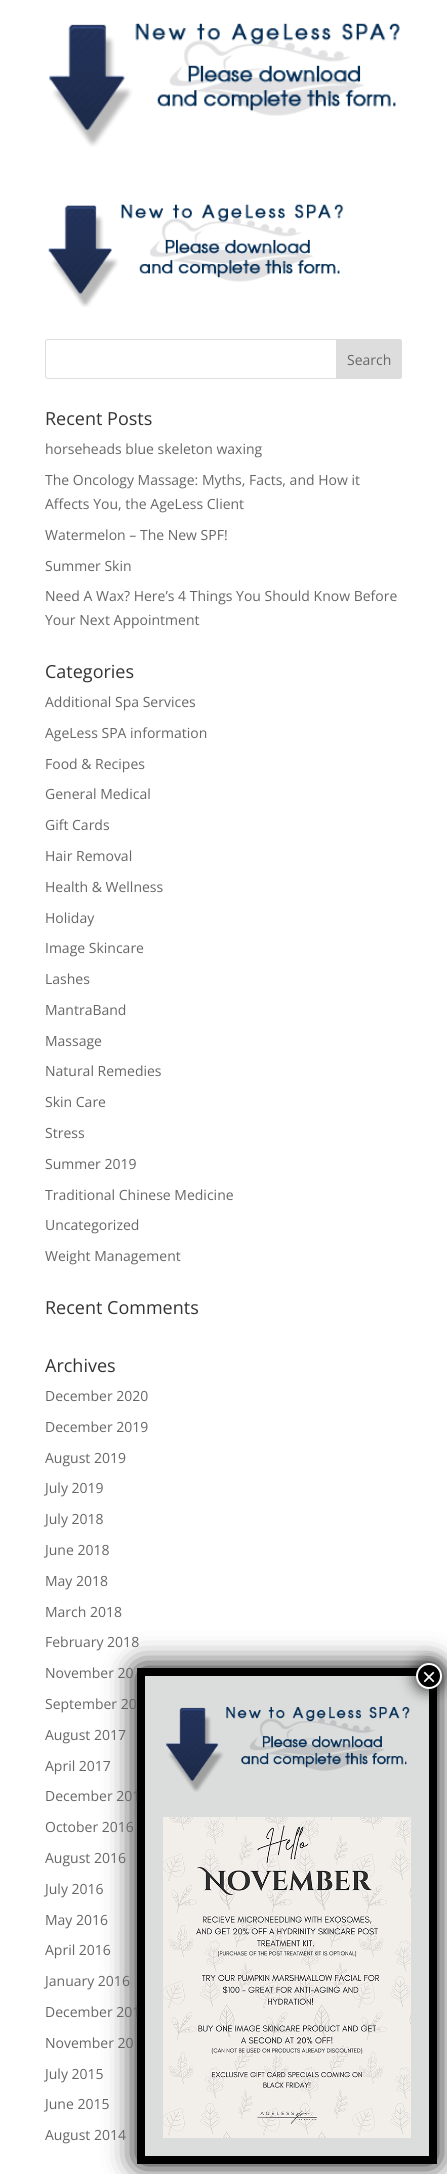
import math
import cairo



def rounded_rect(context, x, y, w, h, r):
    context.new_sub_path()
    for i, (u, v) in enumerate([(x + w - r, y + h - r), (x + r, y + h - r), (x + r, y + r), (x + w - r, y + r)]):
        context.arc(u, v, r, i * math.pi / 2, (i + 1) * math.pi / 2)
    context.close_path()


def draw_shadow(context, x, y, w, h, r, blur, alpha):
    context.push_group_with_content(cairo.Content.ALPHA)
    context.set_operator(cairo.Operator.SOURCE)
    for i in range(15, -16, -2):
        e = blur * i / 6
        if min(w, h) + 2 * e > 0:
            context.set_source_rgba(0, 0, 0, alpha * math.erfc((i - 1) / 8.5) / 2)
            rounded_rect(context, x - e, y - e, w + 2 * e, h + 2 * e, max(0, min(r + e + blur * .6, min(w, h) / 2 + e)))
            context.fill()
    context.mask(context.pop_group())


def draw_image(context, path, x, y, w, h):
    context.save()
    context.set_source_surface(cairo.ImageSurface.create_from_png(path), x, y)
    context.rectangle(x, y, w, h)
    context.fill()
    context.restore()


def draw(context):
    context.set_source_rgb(1, 1, 1)
    context.paint()
    draw_image(context, "images/1.png", 49, 23, 351, 124)
    draw_image(context, "images/2.png", 48, 204, 296, 103)
    rounded_rect(context, 45.5, 339.5, 356, 39, 2.5)
    context.set_source_rgb(221 / 255, 221 / 255, 221 / 255)
    context.set_line_width(1)
    context.stroke()
    context.new_path()
    context.move_to(336.5, 339.5)
    context.line_to(399, 339.5)
    context.curve_to(400.5, 339.5, 401.5, 340.5, 401.5, 342)
    context.line_to(401.5, 376)
    context.curve_to(401.5, 377.5, 400.5, 378.5, 399, 378.5)
    context.line_to(336.5, 378.5)
    context.close_path()
    context.fill_preserve()
    context.stroke()
    context.set_source_rgb(2 / 255, 2 / 255, 2 / 255)
    draw_shadow(context, 137, 1668, 300, 496, 3, 15, 1)
    context.set_source_rgb(219 / 255, 220 / 255, 220 / 255)
    context.rectangle(145, 1676, 284, 480)
    context.fill()
    context.new_path()
    context.move_to(141, 1672)
    context.line_to(433, 1672)
    context.line_to(433, 2160)
    context.line_to(141, 2160)
    context.close_path()
    context.set_source_rgb(0, 0, 0)
    context.set_line_width(8)
    context.stroke()
    draw_image(context, "images/3.png", 166, 1707, 244, 85)
    context.set_source_rgb(2 / 255, 2 / 255, 2 / 255)
    draw_shadow(context, 415, 1662, 28, 28, 14, 7.5, 0.75)
    context.set_source_rgb(0, 0, 0)
    context.arc(429, 1676, 12, 0, 2 * math.pi)
    context.fill_preserve()
    context.set_source_rgb(1, 1, 1)
    context.set_line_width(2)
    context.stroke()
    draw_image(context, "images/4.png", 163, 1817, 248, 321)
    context.select_font_face("Open Sans")
    context.set_font_size(14)
    context.set_source_rgb(102 / 255, 102 / 255, 102 / 255)
    context.move_to(347, 365)
    context.show_text("Search")
    context.set_font_size(18)
    context.set_source_rgb(51 / 255, 51 / 255, 51 / 255)
    context.move_to(45, 425)
    context.show_text("Recent Posts")
    context.set_font_size(14)
    context.set_source_rgb(102 / 255, 102 / 255, 102 / 255)
    context.move_to(45, 454)
    context.show_text("horseheads blue skeleton waxing")
    context.move_to(45, 485)
    context.show_text("The Oncology Massage: Myths, Facts, and How it")
    context.move_to(45, 509)
    context.show_text("Affects You, the AgeLess Client")
    context.move_to(45, 540)
    context.show_text("Watermelon – The New SPF!")
    context.move_to(45, 571)
    context.show_text("Summer Skin")
    context.move_to(45, 601)
    context.show_text("Need A Wax? Here’s 4 Things You Should Know Before")
    context.move_to(45, 625)
    context.show_text("Your Next Appointment")
    context.set_font_size(18)
    context.set_source_rgb(51 / 255, 51 / 255, 51 / 255)
    context.move_to(45, 678)
    context.show_text("Categories")
    context.set_font_size(14)
    context.set_source_rgb(102 / 255, 102 / 255, 102 / 255)
    context.move_to(45, 707)
    context.show_text("Additional Spa Services")
    context.move_to(45, 738)
    context.show_text("AgeLess SPA information")
    context.move_to(45, 769)
    context.show_text("Food & Recipes")
    context.move_to(45, 799)
    context.show_text("General Medical")
    context.move_to(45, 830)
    context.show_text("Gift Cards")
    context.move_to(45, 861)
    context.show_text("Hair Removal")
    context.move_to(45, 892)
    context.show_text("Health & Wellness")
    context.move_to(45, 923)
    context.show_text("Holiday")
    context.move_to(45, 953)
    context.show_text("Image Skincare")
    context.move_to(45, 984)
    context.show_text("Lashes")
    context.move_to(45, 1015)
    context.show_text("MantraBand")
    context.move_to(45, 1046)
    context.show_text("Massage")
    context.move_to(45, 1076)
    context.show_text("Natural Remedies")
    context.move_to(45, 1107)
    context.show_text("Skin Care")
    context.move_to(45, 1138)
    context.show_text("Stress")
    context.move_to(45, 1169)
    context.show_text("Summer 2019")
    context.move_to(45, 1200)
    context.show_text("Traditional Chinese Medicine")
    context.move_to(45, 1230)
    context.show_text("Uncategorized")
    context.move_to(45, 1261)
    context.show_text("Weight Management")
    context.set_font_size(18)
    context.set_source_rgb(51 / 255, 51 / 255, 51 / 255)
    context.move_to(45, 1314)
    context.show_text("Recent Comments")
    context.move_to(45, 1372)
    context.show_text("Archives")
    context.set_font_size(14)
    context.set_source_rgb(102 / 255, 102 / 255, 102 / 255)
    context.move_to(45, 1401)
    context.show_text("December 2020")
    context.move_to(45, 1432)
    context.show_text("December 2019")
    context.move_to(45, 1463)
    context.show_text("August 2019")
    context.move_to(45, 1493)
    context.show_text("July 2019")
    context.move_to(45, 1524)
    context.show_text("July 2018")
    context.move_to(45, 1555)
    context.show_text("June 2018")
    context.move_to(45, 1586)
    context.show_text("May 2018")
    context.move_to(45, 1617)
    context.show_text("March 2018")
    context.move_to(45, 1647)
    context.show_text("February 2018")
    context.move_to(45, 1678)
    context.show_text("November 20")
    context.move_to(45, 1709)
    context.show_text("September 20")
    context.move_to(45, 1740)
    context.show_text("August 2017")
    context.move_to(45, 1771)
    context.show_text("April 2017")
    context.move_to(45, 1801)
    context.show_text("December 201")
    context.move_to(45, 1832)
    context.show_text("October 2016")
    context.move_to(45, 1863)
    context.show_text("August 2016")
    context.move_to(45, 1894)
    context.show_text("July 2016")
    context.move_to(45, 1925)
    context.show_text("May 2016")
    context.move_to(45, 1955)
    context.show_text("April 2016")
    context.move_to(45, 1986)
    context.show_text("January 2016")
    context.move_to(45, 2017)
    context.show_text("December 201")
    context.move_to(45, 2048)
    context.show_text("November 20")
    context.move_to(45, 2079)
    context.show_text("July 2015")
    context.move_to(45, 2109)
    context.show_text("June 2015")
    context.move_to(45, 2140)
    context.show_text("August 2014")
    context.select_font_face("Liberation Sans")
    context.set_font_size(24)
    context.set_source_rgb(1, 1, 1)
    context.move_to(422, 1685)
    context.show_text("×")


surface = cairo.ImageSurface(cairo.Format.RGB24, 447, 2174)
context = cairo.Context(surface)
options = cairo.FontOptions()
options.set_hint_metrics(cairo.HintMetrics.OFF)
options.set_hint_style(cairo.HintStyle.NONE)
context.set_font_options(options)
context.set_miter_limit(4)
draw(context)
surface.write_to_png("out.png")
